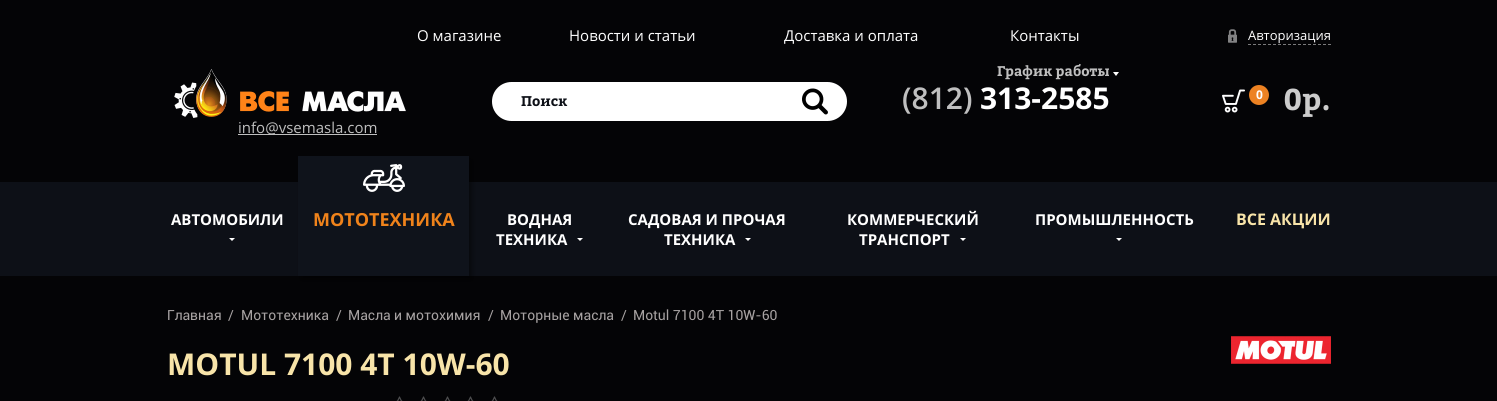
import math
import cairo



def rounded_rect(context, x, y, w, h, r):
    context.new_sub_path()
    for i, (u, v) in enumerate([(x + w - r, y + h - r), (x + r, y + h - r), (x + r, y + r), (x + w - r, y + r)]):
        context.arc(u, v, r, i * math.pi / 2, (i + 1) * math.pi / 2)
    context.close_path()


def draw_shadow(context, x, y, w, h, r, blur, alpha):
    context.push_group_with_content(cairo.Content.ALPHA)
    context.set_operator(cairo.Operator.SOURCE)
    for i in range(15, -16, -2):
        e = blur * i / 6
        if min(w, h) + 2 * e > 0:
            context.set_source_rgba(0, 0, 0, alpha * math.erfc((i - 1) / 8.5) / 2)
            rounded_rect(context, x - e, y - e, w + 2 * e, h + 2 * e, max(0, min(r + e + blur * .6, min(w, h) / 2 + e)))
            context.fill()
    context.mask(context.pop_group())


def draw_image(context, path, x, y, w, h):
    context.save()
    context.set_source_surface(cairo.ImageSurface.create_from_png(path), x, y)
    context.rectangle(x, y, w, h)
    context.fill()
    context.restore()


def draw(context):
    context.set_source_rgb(4 / 255, 4 / 255, 6 / 255)
    context.paint()
    draw_image(context, "images/1.png", 1228, 29, 9, 14)
    context.new_path()
    context.move_to(1248, 44.5)
    context.line_to(1331, 44.5)
    context.set_source_rgb(122 / 255, 122 / 255, 123 / 255)
    context.set_line_width(1)
    context.set_dash([3, 2])
    context.stroke()
    context.set_source_rgb(1, 1, 1)
    rounded_rect(context, 492, 82, 355, 39, 19.5)
    context.fill()
    draw_image(context, "images/2.png", 802, 88, 26, 27)
    context.new_path()
    context.move_to(1113, 72)
    context.line_to(1119, 72)
    context.line_to(1116, 76)
    context.close_path()
    context.fill()
    draw_image(context, "images/3.png", 1222, 89, 23, 24)
    context.set_source_rgb(237 / 255, 130 / 255, 34 / 255)
    context.arc(1259, 95, 10, 0, 2 * math.pi)
    context.fill()
    draw_image(context, "images/4.png", 174, 69, 232, 49)
    context.set_source_rgb(191 / 255, 191 / 255, 191 / 255)
    context.rectangle(238, 134, 139, 1)
    context.fill()
    context.set_source_rgb(13 / 255, 16 / 255, 23 / 255)
    context.rectangle(0, 182, 1497, 94)
    context.fill()
    context.set_source_rgb(1, 1, 1)
    context.new_path()
    context.move_to(229, 238)
    context.line_to(235, 238)
    context.line_to(232, 241)
    context.close_path()
    context.fill()
    context.set_source_rgb(0, 0, 0)
    draw_shadow(context, 301, 160, 171, 120, 0, 2.5, 0.46)
    context.set_source_rgb(15 / 255, 19 / 255, 27 / 255)
    context.rectangle(298, 156, 171, 120)
    context.fill()
    draw_image(context, "images/5.png", 363, 164, 42, 28)
    context.set_source_rgb(1, 1, 1)
    context.new_path()
    context.move_to(577, 238)
    context.line_to(583, 238)
    context.line_to(580, 241)
    context.close_path()
    context.fill()
    context.new_path()
    context.move_to(745, 238)
    context.line_to(751, 238)
    context.line_to(748, 241)
    context.close_path()
    context.fill()
    context.new_path()
    context.move_to(960, 238)
    context.line_to(966, 238)
    context.line_to(963, 241)
    context.close_path()
    context.fill()
    context.new_path()
    context.move_to(1116, 238)
    context.line_to(1122, 238)
    context.line_to(1119, 241)
    context.close_path()
    context.fill()
    draw_image(context, "images/6.png", 1231, 336, 100, 28)
    draw_image(context, "images/7.png", 396, 396, 7, 5)
    draw_image(context, "images/7.png", 420, 396, 7, 5)
    draw_image(context, "images/7.png", 444, 396, 7, 5)
    draw_image(context, "images/7.png", 467, 396, 7, 5)
    draw_image(context, "images/7.png", 491, 396, 7, 5)
    context.select_font_face("Open Sans")
    context.set_font_size(15)
    context.move_to(417, 41)
    context.show_text("О магазине")
    context.move_to(569, 41)
    context.show_text("Новости и статьи")
    context.move_to(784, 41)
    context.show_text("Доставка и оплата")
    context.move_to(1010, 41)
    context.show_text("Контакты")
    context.set_font_size(13)
    context.move_to(1248, 40)
    context.show_text("Авторизация")
    context.select_font_face("Bitter", cairo.FontSlant.NORMAL, cairo.FontWeight.BOLD)
    context.set_font_size(14)
    context.set_source_rgb(13 / 255, 16 / 255, 23 / 255)
    context.move_to(521, 106)
    context.show_text("Поиск")
    context.set_source_rgb(191 / 255, 191 / 255, 191 / 255)
    context.move_to(997, 76)
    context.show_text("График работы")
    context.select_font_face("Open Sans SemiBold")
    context.set_font_size(30)
    context.move_to(902, 109)
    context.show_text("(812)")
    context.select_font_face("Open Sans", cairo.FontSlant.NORMAL, cairo.FontWeight.BOLD)
    context.set_source_rgb(1, 1, 1)
    context.move_to(980, 109)
    context.show_text("313-2585")
    context.set_font_size(12)
    context.move_to(1256, 99)
    context.show_text("0")
    context.select_font_face("Bitter", cairo.FontSlant.NORMAL, cairo.FontWeight.BOLD)
    context.set_font_size(30)
    context.set_source_rgb(204 / 255, 204 / 255, 204 / 255)
    context.move_to(1283, 110)
    context.show_text("0р.")
    context.select_font_face("Open Sans")
    context.set_font_size(15)
    context.set_source_rgb(191 / 255, 191 / 255, 191 / 255)
    context.move_to(238, 133)
    context.show_text("info@vsemasla.com")
    context.select_font_face("Open Sans", cairo.FontSlant.NORMAL, cairo.FontWeight.BOLD)
    context.set_source_rgb(1, 1, 1)
    context.move_to(171, 225)
    context.show_text("АВТОМОБИЛИ")
    context.set_font_size(18)
    context.set_source_rgb(240 / 255, 131 / 255, 27 / 255)
    context.move_to(313, 226)
    context.show_text("МОТОТЕХНИКА")
    context.set_font_size(15)
    context.set_source_rgb(1, 1, 1)
    context.move_to(507, 225)
    context.show_text("ВОДНАЯ")
    context.move_to(496, 245)
    context.show_text("ТЕХНИКА")
    context.move_to(628, 225)
    context.show_text("САДОВАЯ И ПРОЧАЯ")
    context.move_to(664, 245)
    context.show_text("ТЕХНИКА")
    context.move_to(847, 225)
    context.show_text("КОММЕРЧЕСКИЙ")
    context.move_to(859, 245)
    context.show_text("ТРАНСПОРТ")
    context.move_to(1035, 225)
    context.show_text("ПРОМЫШЛЕННОСТЬ")
    context.set_font_size(16)
    context.set_source_rgb(248 / 255, 228 / 255, 169 / 255)
    context.move_to(1236, 225)
    context.show_text("ВСЕ АКЦИИ")
    context.select_font_face("Roboto")
    context.set_font_size(14)
    context.set_source_rgb(167 / 255, 162 / 255, 162 / 255)
    context.move_to(167, 320)
    context.show_text("Главная")
    context.move_to(228, 320)
    context.show_text("/")
    context.move_to(241, 320)
    context.show_text("Мототехника")
    context.move_to(336, 320)
    context.show_text("/")
    context.move_to(348, 320)
    context.show_text("Масла и мотохимия")
    context.move_to(488, 320)
    context.show_text("/")
    context.move_to(500, 320)
    context.show_text("Моторные масла")
    context.move_to(621, 320)
    context.show_text("/")
    context.move_to(633, 320)
    context.show_text("Motul 7100 4T 10W-60")
    context.select_font_face("Open Sans", cairo.FontSlant.NORMAL, cairo.FontWeight.BOLD)
    context.set_font_size(30)
    context.set_source_rgb(248 / 255, 228 / 255, 169 / 255)
    context.move_to(167, 375)
    context.show_text("MOTUL 7100 4T 10W-60")


surface = cairo.ImageSurface(cairo.Format.RGB24, 1497, 401)
context = cairo.Context(surface)
options = cairo.FontOptions()
options.set_hint_metrics(cairo.HintMetrics.OFF)
options.set_hint_style(cairo.HintStyle.NONE)
context.set_font_options(options)
context.set_miter_limit(4)
draw(context)
surface.write_to_png("out.png")
